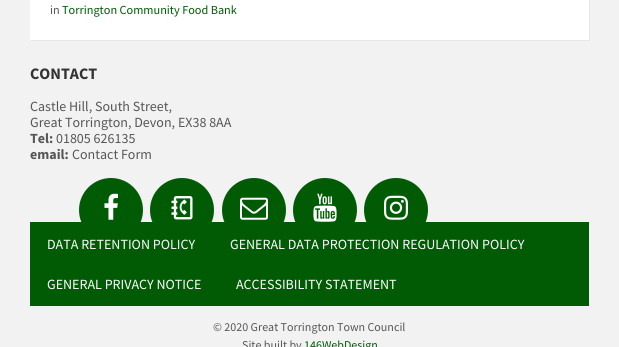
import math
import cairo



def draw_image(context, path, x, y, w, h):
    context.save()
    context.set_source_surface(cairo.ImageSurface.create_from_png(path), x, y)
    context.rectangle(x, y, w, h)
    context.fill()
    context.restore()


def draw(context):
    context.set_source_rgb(242 / 255, 242 / 255, 242 / 255)
    context.paint()
    context.set_source_rgb(230 / 255, 230 / 255, 230 / 255)
    context.new_path()
    context.move_to(31, 40)
    context.line_to(31, 41)
    context.line_to(590, 41)
    context.line_to(590, -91)
    context.line_to(589, -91)
    context.line_to(589, 40)
    context.close_path()
    context.fill()
    context.set_source_rgb(1, 1, 1)
    context.rectangle(30, 0, 559, 40)
    context.fill()
    context.set_source_rgb(0, 91 / 255, 4 / 255)
    context.arc(111, 210, 32, 0, 2 * math.pi)
    context.fill()
    draw_image(context, "images/1.png", 104, 193, 14, 27)
    context.arc(182, 210, 32, 0, 2 * math.pi)
    context.fill()
    draw_image(context, "images/2.png", 171, 196, 22, 24)
    context.arc(254, 210, 32, 0, 2 * math.pi)
    context.fill()
    draw_image(context, "images/3.png", 240, 197, 28, 23)
    context.arc(325, 210, 32, 0, 2 * math.pi)
    context.fill()
    draw_image(context, "images/4.png", 313, 193, 24, 29)
    context.arc(396, 210, 32, 0, 2 * math.pi)
    context.fill()
    draw_image(context, "images/5.png", 384, 195, 24, 25)
    context.rectangle(30, 222, 559, 84)
    context.fill()
    context.select_font_face("Source Sans Pro")
    context.set_font_size(12.25)
    context.set_source_rgb(86 / 255, 86 / 255, 86 / 255)
    context.move_to(50, 14)
    context.show_text("in")
    context.set_source_rgb(0, 91 / 255, 4 / 255)
    context.move_to(62, 14)
    context.show_text("Torrington Community Food Bank")
    context.select_font_face("Source Sans Pro", cairo.FontSlant.NORMAL, cairo.FontWeight.BOLD)
    context.set_font_size(16)
    context.set_source_rgb(51 / 255, 51 / 255, 51 / 255)
    context.move_to(30, 79)
    context.show_text("CONTACT")
    context.select_font_face("Source Sans Pro")
    context.set_font_size(14)
    context.set_source_rgb(86 / 255, 86 / 255, 86 / 255)
    context.move_to(30, 111)
    context.show_text("Castle Hill, South Street,")
    context.move_to(30, 127)
    context.show_text("Great Torrington, Devon, EX38 8AA")
    context.select_font_face("Source Sans Pro", cairo.FontSlant.NORMAL, cairo.FontWeight.BOLD)
    context.move_to(30, 143)
    context.show_text("Tel:")
    context.select_font_face("Source Sans Pro")
    context.move_to(56, 143)
    context.show_text("01805 626135")
    context.select_font_face("Source Sans Pro", cairo.FontSlant.NORMAL, cairo.FontWeight.BOLD)
    context.move_to(30, 159)
    context.show_text("email:")
    context.select_font_face("Source Sans Pro")
    context.move_to(72, 159)
    context.show_text("Contact Form")
    context.set_source_rgb(1, 1, 1)
    context.move_to(47, 249)
    context.show_text("DATA RETENTION POLICY")
    context.move_to(230, 249)
    context.show_text("GENERAL DATA PROTECTION REGULATION POLICY")
    context.move_to(47, 289)
    context.show_text("GENERAL PRIVACY NOTICE")
    context.move_to(236, 289)
    context.show_text("ACCESSIBILITY STATEMENT")
    context.set_font_size(12)
    context.set_source_rgb(86 / 255, 86 / 255, 86 / 255)
    context.move_to(213, 331)
    context.show_text("© 2020 Great Torrington Town Council")
    context.move_to(242, 349)
    context.show_text("Site built by")
    context.set_source_rgb(0, 91 / 255, 4 / 255)
    context.move_to(304, 349)
    context.show_text("146WebDesign")


surface = cairo.ImageSurface(cairo.Format.RGB24, 619, 347)
context = cairo.Context(surface)
options = cairo.FontOptions()
options.set_hint_metrics(cairo.HintMetrics.OFF)
options.set_hint_style(cairo.HintStyle.NONE)
context.set_font_options(options)
context.set_miter_limit(4)
draw(context)
surface.write_to_png("out.png")
